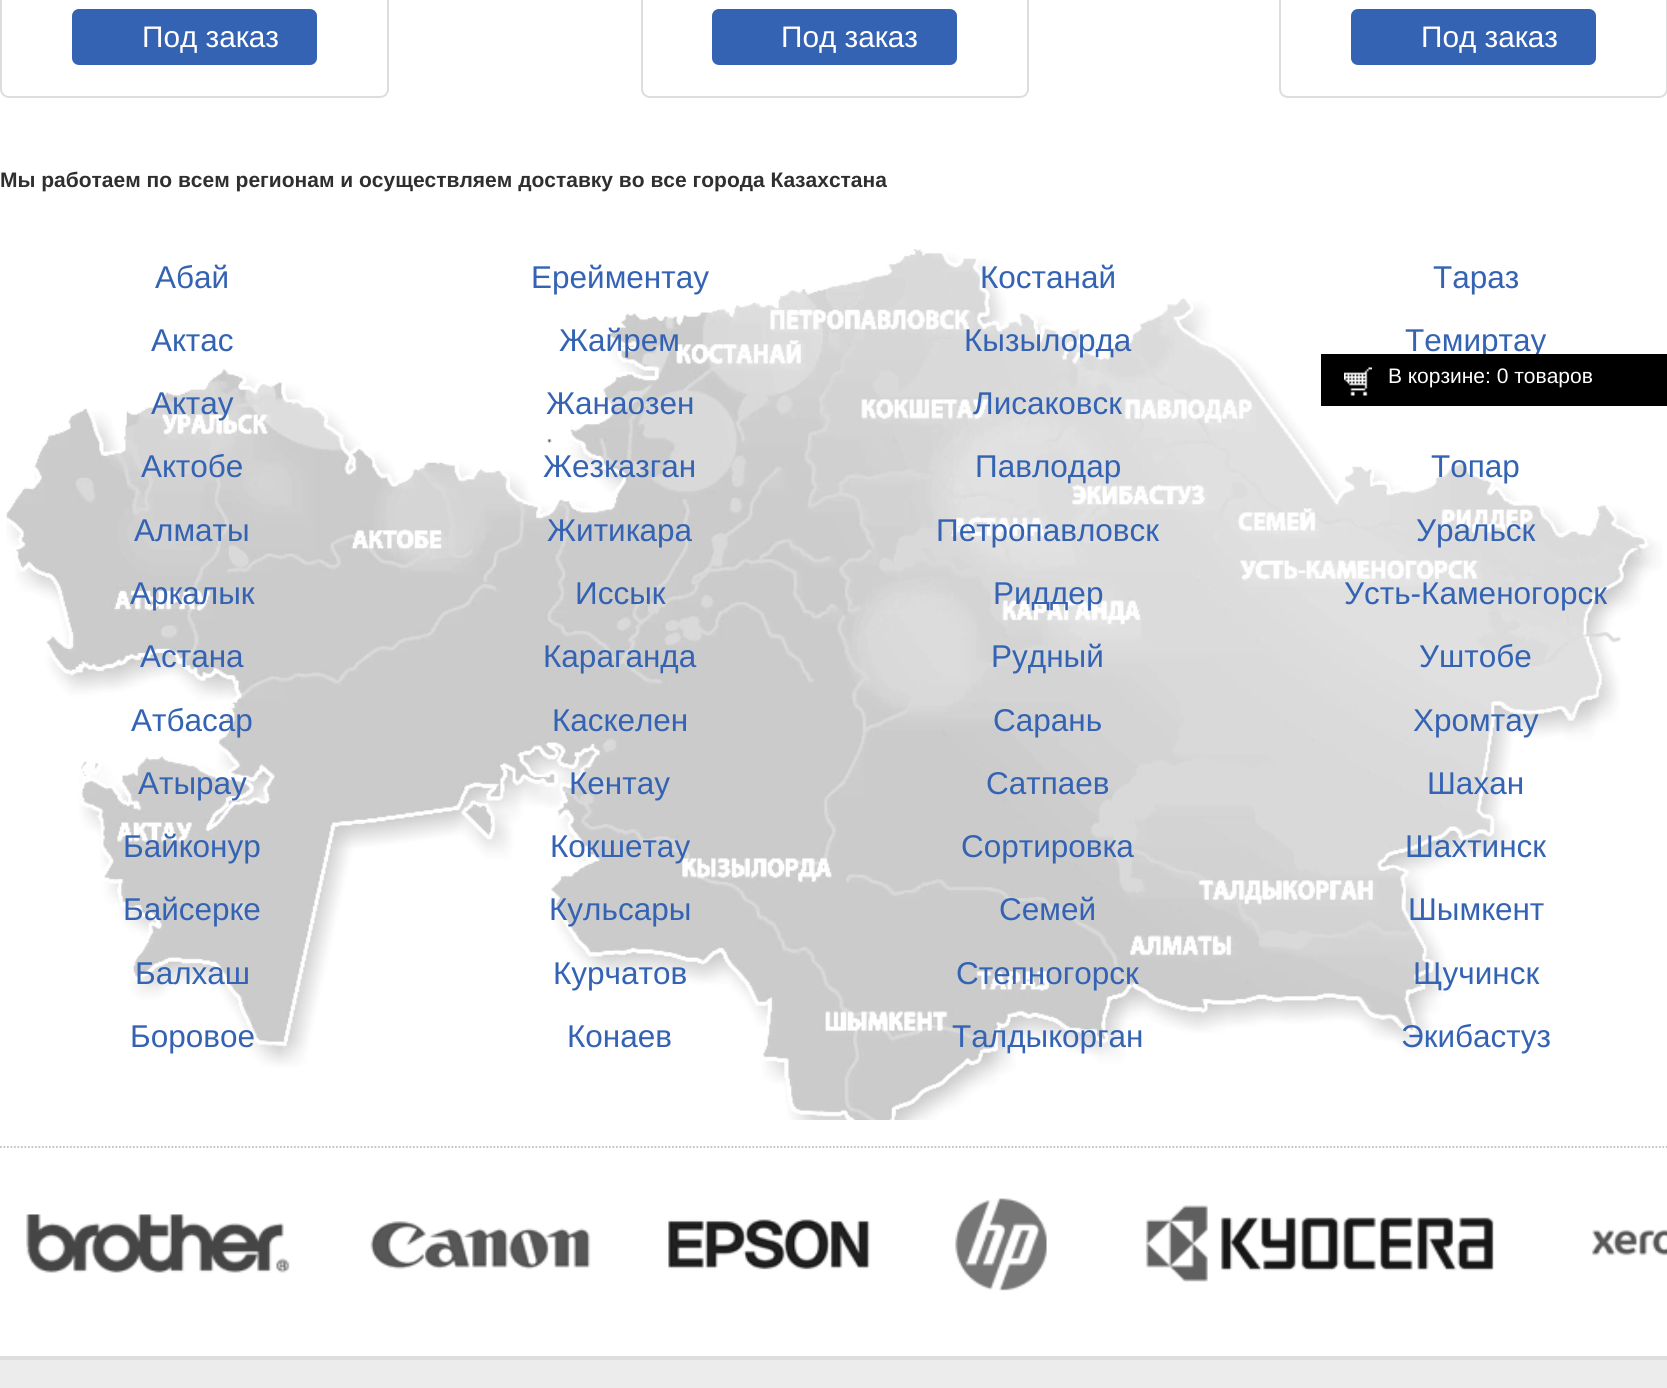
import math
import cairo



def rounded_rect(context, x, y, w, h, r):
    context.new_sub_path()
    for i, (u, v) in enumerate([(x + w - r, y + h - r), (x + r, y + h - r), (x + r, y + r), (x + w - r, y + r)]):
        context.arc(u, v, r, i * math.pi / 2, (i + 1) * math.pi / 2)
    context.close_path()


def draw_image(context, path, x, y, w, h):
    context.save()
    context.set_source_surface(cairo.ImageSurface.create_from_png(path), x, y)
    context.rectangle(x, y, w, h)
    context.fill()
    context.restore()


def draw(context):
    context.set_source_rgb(1, 1, 1)
    context.paint()
    rounded_rect(context, 1, -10, 387, 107, 8)
    context.set_source_rgb(221 / 255, 221 / 255, 221 / 255)
    context.stroke()
    context.set_source_rgb(52 / 255, 99 / 255, 179 / 255)
    rounded_rect(context, 72, 9, 245, 56, 7)
    context.fill()
    rounded_rect(context, 642, -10, 386, 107, 8)
    context.set_source_rgb(221 / 255, 221 / 255, 221 / 255)
    context.stroke()
    context.set_source_rgb(52 / 255, 99 / 255, 179 / 255)
    rounded_rect(context, 712, 9, 245, 56, 7)
    context.fill()
    rounded_rect(context, 1280, -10, 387, 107, 8)
    context.set_source_rgb(221 / 255, 221 / 255, 221 / 255)
    context.stroke()
    context.set_source_rgb(52 / 255, 99 / 255, 179 / 255)
    rounded_rect(context, 1351, 9, 245, 56, 7)
    context.fill()
    draw_image(context, "images/1.png", 6, 249, 1657, 871)
    context.new_path()
    context.move_to(0, 1147)
    context.line_to(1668, 1147)
    context.set_source_rgb(191 / 255, 191 / 255, 191 / 255)
    context.set_line_width(1.8)
    context.set_dash([1.75, 1.75])
    context.stroke()
    draw_image(context, "images/2.png", 26, 1198, 1641, 93)
    context.set_source_rgb(236 / 255, 236 / 255, 236 / 255)
    context.rectangle(0, 1360, 1667, 28)
    context.fill()
    context.set_source_rgb(222 / 255, 222 / 255, 222 / 255)
    context.rectangle(0, 1356, 1667, 4)
    context.fill()
    context.select_font_face("Liberation Sans")
    context.set_font_size(29.75)
    context.set_source_rgb(1, 1, 1)
    context.move_to(142, 47)
    context.show_text("Под заказ")
    context.move_to(781, 47)
    context.show_text("Под заказ")
    context.move_to(1421, 47)
    context.show_text("Под заказ")
    context.select_font_face("Liberation Sans", cairo.FontSlant.NORMAL, cairo.FontWeight.BOLD)
    context.set_font_size(21)
    context.set_source_rgb(47 / 255, 47 / 255, 47 / 255)
    context.move_to(0, 187)
    context.show_text("Мы работаем по всем регионам и осуществляем доставку во все города Казахстана")
    context.select_font_face("Liberation Sans")
    context.set_font_size(31.5)
    context.set_source_rgb(52 / 255, 99 / 255, 179 / 255)
    context.move_to(155, 288)
    context.show_text("Абай")
    context.move_to(531, 288)
    context.show_text("Ерейментау")
    context.move_to(980, 288)
    context.show_text("Костанай")
    context.move_to(1433, 288)
    context.show_text("Тараз")
    context.move_to(151, 351)
    context.show_text("Актас")
    context.move_to(559, 351)
    context.show_text("Жайрем")
    context.move_to(964, 351)
    context.show_text("Кызылорда")
    context.move_to(1405, 351)
    context.show_text("Темиртау")
    context.move_to(151, 414)
    context.show_text("Актау")
    context.move_to(546, 414)
    context.show_text("Жанаозен")
    context.move_to(973, 414)
    context.show_text("Лисаковск")
    context.move_to(141, 477)
    context.show_text("Актобе")
    context.move_to(543, 477)
    context.show_text("Жезказган")
    context.move_to(975, 477)
    context.show_text("Павлодар")
    context.move_to(1431, 477)
    context.show_text("Топар")
    context.move_to(134, 541)
    context.show_text("Алматы")
    context.move_to(547, 541)
    context.show_text("Житикара")
    context.move_to(936, 541)
    context.show_text("Петропавловск")
    context.move_to(1416, 541)
    context.show_text("Уральск")
    context.move_to(130, 604)
    context.show_text("Аркалык")
    context.move_to(575, 604)
    context.show_text("Иссык")
    context.move_to(993, 604)
    context.show_text("Риддер")
    context.move_to(1344, 604)
    context.show_text("Усть-Каменогорск")
    context.move_to(140, 667)
    context.show_text("Астана")
    context.move_to(543, 667)
    context.show_text("Караганда")
    context.move_to(991, 667)
    context.show_text("Рудный")
    context.move_to(1419, 667)
    context.show_text("Уштобе")
    context.move_to(131, 731)
    context.show_text("Атбасар")
    context.move_to(552, 731)
    context.show_text("Каскелен")
    context.move_to(993, 731)
    context.show_text("Сарань")
    context.move_to(1413, 731)
    context.show_text("Хромтау")
    context.move_to(138, 794)
    context.show_text("Атырау")
    context.move_to(569, 794)
    context.show_text("Кентау")
    context.move_to(986, 794)
    context.show_text("Сатпаев")
    context.move_to(1427, 794)
    context.show_text("Шахан")
    context.move_to(123, 857)
    context.show_text("Байконур")
    context.move_to(550, 857)
    context.show_text("Кокшетау")
    context.move_to(961, 857)
    context.show_text("Сортировка")
    context.move_to(1405, 857)
    context.show_text("Шахтинск")
    context.move_to(123, 920)
    context.show_text("Байсерке")
    context.move_to(549, 920)
    context.show_text("Кульсары")
    context.move_to(999, 920)
    context.show_text("Семей")
    context.move_to(1408, 920)
    context.show_text("Шымкент")
    context.move_to(135, 984)
    context.show_text("Балхаш")
    context.move_to(553, 984)
    context.show_text("Курчатов")
    context.move_to(956, 984)
    context.show_text("Степногорск")
    context.move_to(1413, 984)
    context.show_text("Щучинск")
    context.move_to(130, 1047)
    context.show_text("Боровое")
    context.move_to(567, 1047)
    context.show_text("Конаев")
    context.move_to(952, 1047)
    context.show_text("Талдыкорган")
    context.move_to(1401, 1047)
    context.show_text("Экибастуз")
    context.set_source_rgb(0, 0, 0)
    context.rectangle(1321, 354, 346, 52)
    context.fill()
    draw_image(context, "images/3.png", 1344, 367, 28, 29)
    context.set_font_size(21)
    context.set_source_rgb(1, 1, 1)
    context.move_to(1388, 383)
    context.show_text("В корзине: 0 товаров")


surface = cairo.ImageSurface(cairo.Format.RGB24, 1667, 1388)
context = cairo.Context(surface)
options = cairo.FontOptions()
options.set_hint_metrics(cairo.HintMetrics.OFF)
options.set_hint_style(cairo.HintStyle.NONE)
context.set_font_options(options)
context.set_miter_limit(4)
draw(context)
surface.write_to_png("out.png")
